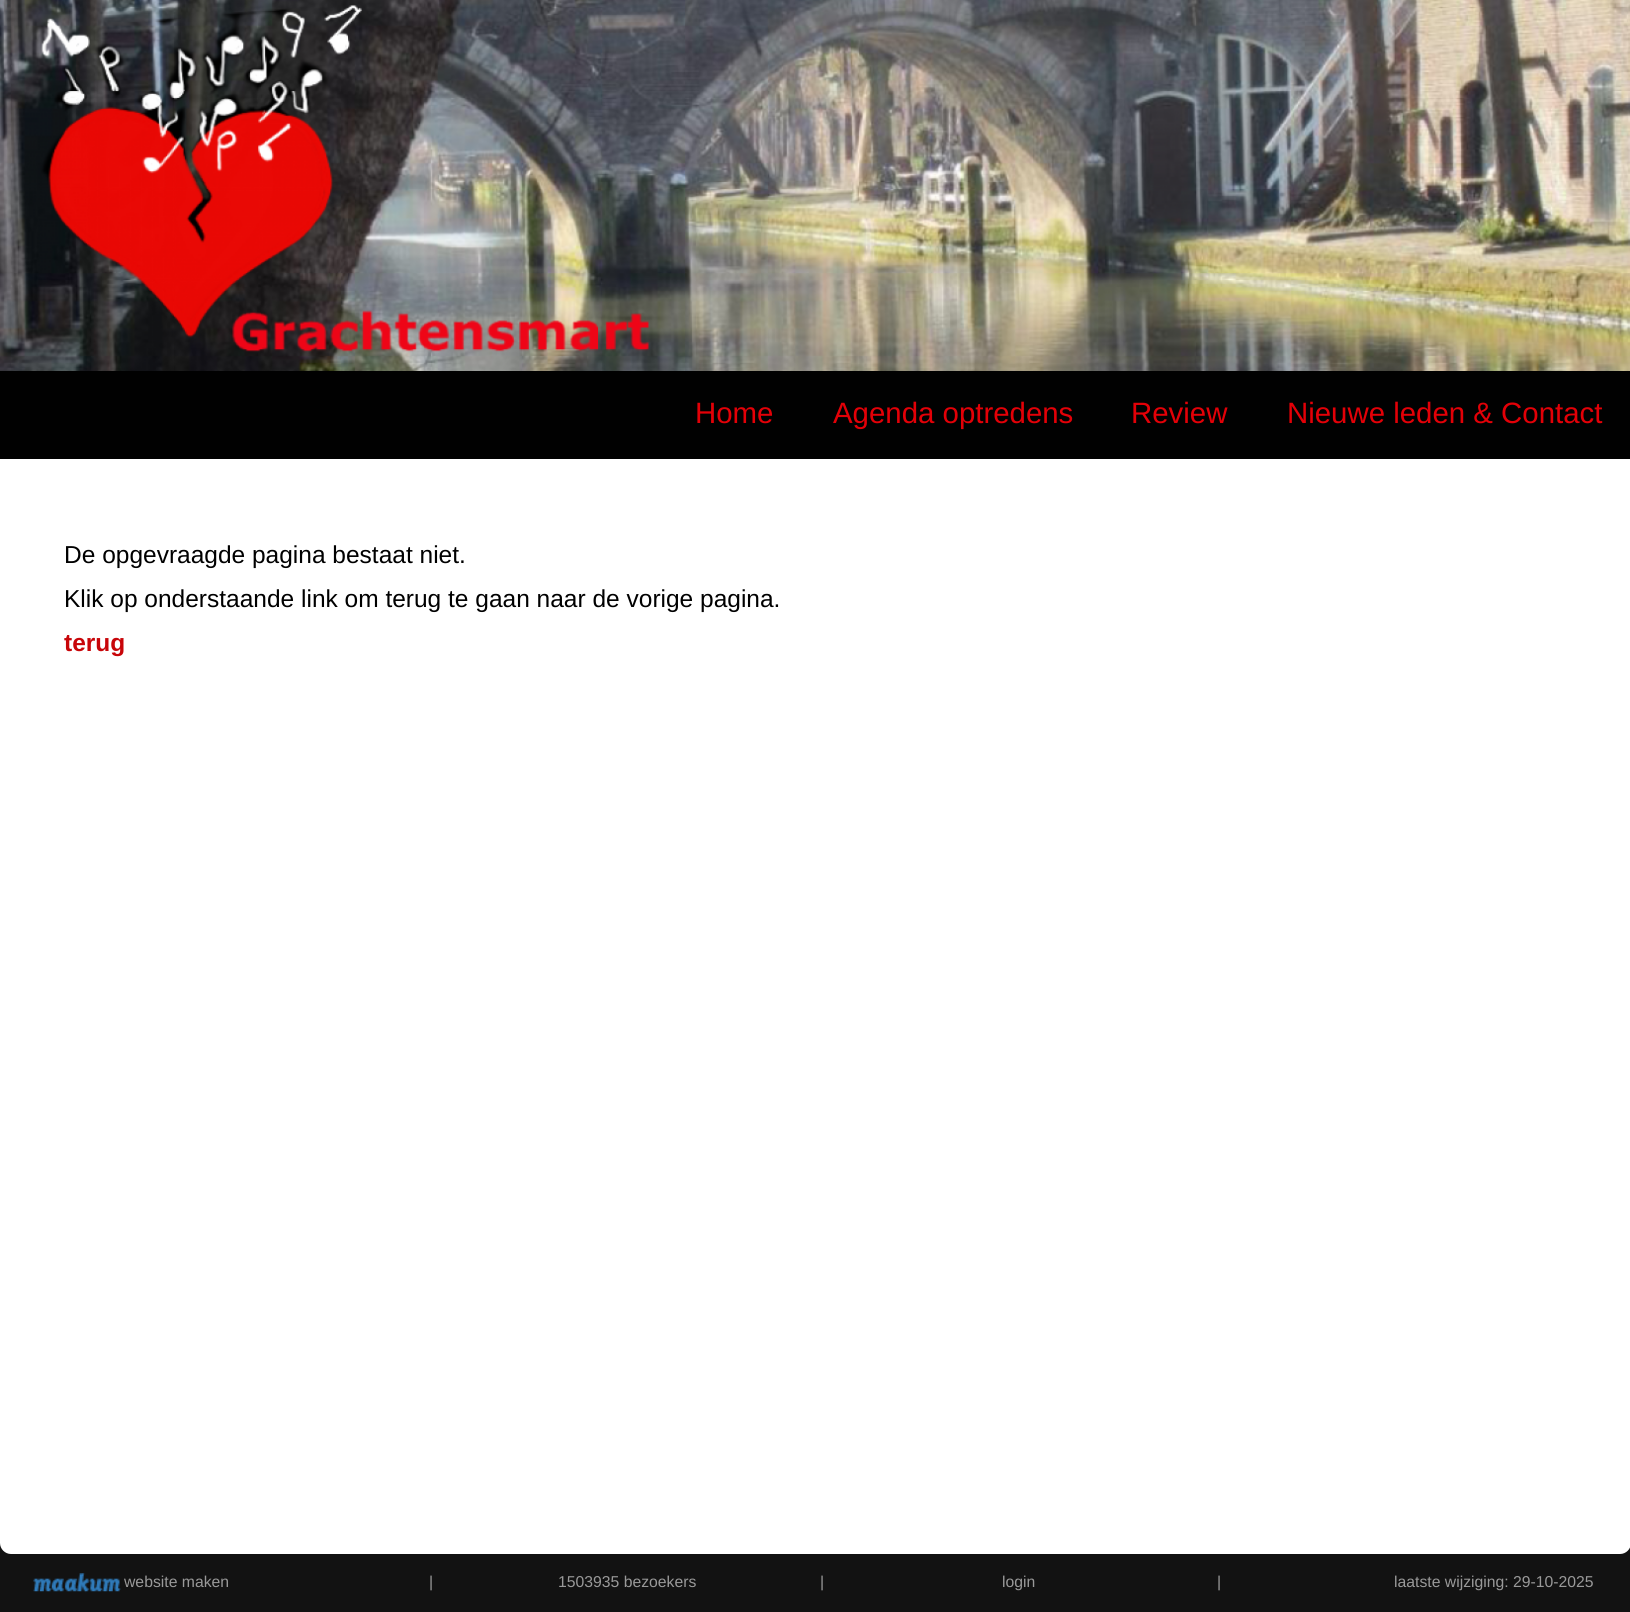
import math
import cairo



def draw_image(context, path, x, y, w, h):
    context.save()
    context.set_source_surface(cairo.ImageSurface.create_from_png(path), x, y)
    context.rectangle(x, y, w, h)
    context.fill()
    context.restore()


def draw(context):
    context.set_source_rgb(18 / 255, 18 / 255, 18 / 255)
    context.paint()
    draw_image(context, "images/1.png", 0, 0, 1630, 371)
    context.set_source_rgb(1 / 255, 1 / 255, 1 / 255)
    context.rectangle(0, 371, 1630, 88)
    context.fill()
    context.set_source_rgb(1, 1, 1)
    context.new_path()
    context.move_to(0, 459)
    context.line_to(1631, 459)
    context.line_to(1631, 1543)
    context.curve_to(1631, 1549, 1626, 1554, 1620, 1554)
    context.line_to(11, 1554)
    context.curve_to(5, 1554, 0, 1549, 0, 1543)
    context.close_path()
    context.fill()
    draw_image(context, "images/2.png", 33, 1573, 88, 20)
    context.select_font_face("Liberation Sans")
    context.set_font_size(29.4)
    context.set_source_rgb(227 / 255, 0, 7 / 255)
    context.move_to(695, 423)
    context.show_text("Home")
    context.move_to(833, 423)
    context.show_text("Agenda optredens")
    context.move_to(1131, 423)
    context.show_text("Review")
    context.move_to(1287, 423)
    context.show_text("Nieuwe leden & Contact")
    context.set_font_size(24.5)
    context.set_source_rgb(0, 0, 0)
    context.move_to(64, 563)
    context.show_text("De opgevraagde pagina bestaat niet.")
    context.move_to(64, 607)
    context.show_text("Klik op onderstaande link om terug te gaan naar de vorige pagina.")
    context.select_font_face("Liberation Sans", cairo.FontSlant.NORMAL, cairo.FontWeight.BOLD)
    context.set_source_rgb(200 / 255, 5 / 255, 9 / 255)
    context.move_to(64, 651)
    context.show_text("terug")
    context.select_font_face("Liberation Sans")
    context.set_font_size(15.75)
    context.set_source_rgb(153 / 255, 153 / 255, 153 / 255)
    context.move_to(124, 1587)
    context.show_text("website maken")
    context.move_to(429, 1587)
    context.show_text("|")
    context.move_to(558, 1587)
    context.show_text("1503935 bezoekers")
    context.move_to(820, 1587)
    context.show_text("|")
    context.move_to(1002, 1587)
    context.show_text("login")
    context.move_to(1217, 1587)
    context.show_text("|")
    context.move_to(1394, 1587)
    context.show_text("laatste wijziging: 29-10-2025")


surface = cairo.ImageSurface(cairo.Format.RGB24, 1630, 1612)
context = cairo.Context(surface)
options = cairo.FontOptions()
options.set_hint_metrics(cairo.HintMetrics.OFF)
options.set_hint_style(cairo.HintStyle.NONE)
context.set_font_options(options)
context.set_miter_limit(4)
draw(context)
surface.write_to_png("out.png")
